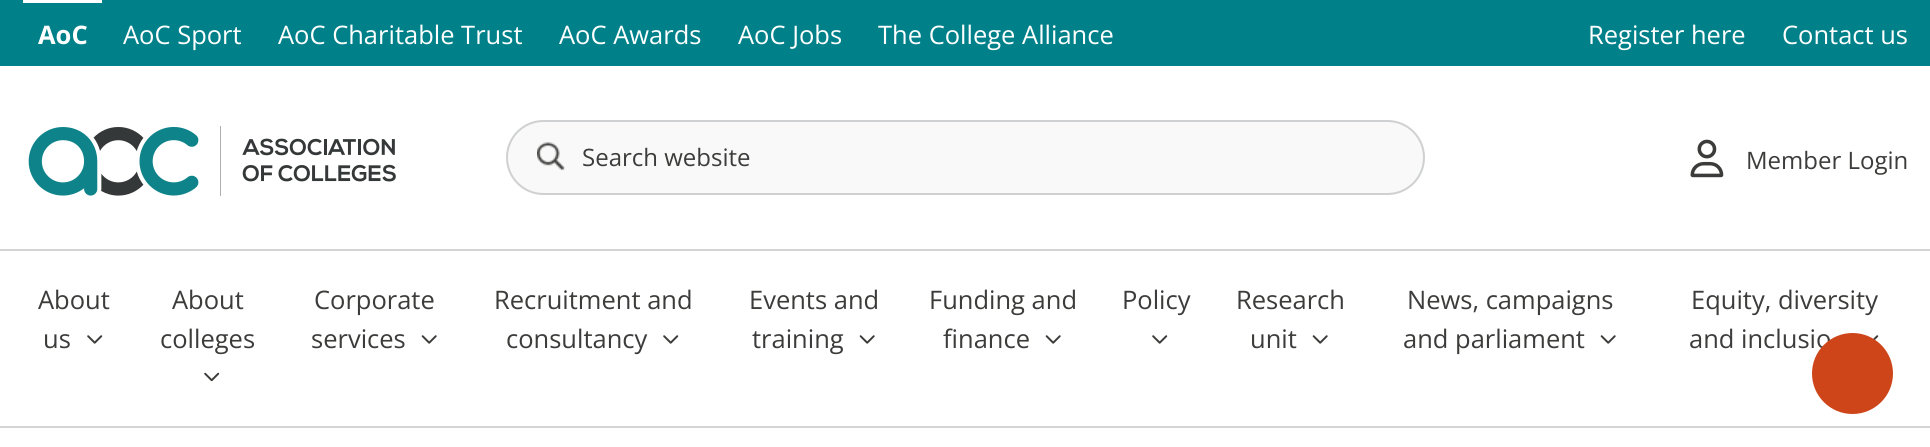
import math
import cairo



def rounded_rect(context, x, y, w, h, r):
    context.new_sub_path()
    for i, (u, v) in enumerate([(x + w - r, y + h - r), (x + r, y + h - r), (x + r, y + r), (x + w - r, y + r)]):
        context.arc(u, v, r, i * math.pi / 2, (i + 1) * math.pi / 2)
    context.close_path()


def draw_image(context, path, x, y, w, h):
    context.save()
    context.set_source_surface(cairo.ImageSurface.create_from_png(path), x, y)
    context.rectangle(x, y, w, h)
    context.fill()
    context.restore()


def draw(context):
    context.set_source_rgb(1, 1, 1)
    context.paint()
    context.set_source_rgb(0, 129 / 255, 138 / 255)
    context.rectangle(0, 0, 1930, 66)
    context.fill()
    context.set_source_rgb(1, 1, 1)
    context.rectangle(23, 0, 79, 3)
    context.fill()
    context.set_source_rgb(211 / 255, 212 / 255, 213 / 255)
    context.rectangle(0, 249, 1930, 2)
    context.fill()
    draw_image(context, "images/1.png", 28, 126, 368, 70)
    context.set_source_rgb(249 / 255, 249 / 255, 249 / 255)
    rounded_rect(context, 506, 120, 919, 75, 37.5)
    context.fill()
    draw_image(context, "images/2.png", 537, 142, 28, 29)
    rounded_rect(context, 507, 121, 917, 73, 36.5)
    context.set_source_rgba(166 / 255, 168 / 255, 171 / 255, 0.5)
    context.stroke()
    draw_image(context, "images/3.png", 1690, 139, 34, 39)
    context.set_source_rgb(211 / 255, 212 / 255, 213 / 255)
    context.rectangle(0, 426, 1930, 2)
    context.fill()
    draw_image(context, "images/4.png", 87, 335, 16, 9)
    draw_image(context, "images/5.png", 204, 372, 16, 10)
    draw_image(context, "images/6.png", 421, 335, 16, 9)
    draw_image(context, "images/4.png", 663, 335, 16, 9)
    draw_image(context, "images/6.png", 859, 335, 16, 9)
    draw_image(context, "images/6.png", 1045, 335, 16, 9)
    draw_image(context, "images/4.png", 1152, 335, 16, 9)
    draw_image(context, "images/6.png", 1312, 335, 16, 9)
    draw_image(context, "images/6.png", 1600, 335, 16, 9)
    draw_image(context, "images/7.png", 1865, 335, 14, 5)
    context.select_font_face("Open Sans", cairo.FontSlant.NORMAL, cairo.FontWeight.BOLD)
    context.set_font_size(25.5)
    context.set_source_rgb(1, 1, 1)
    context.move_to(38, 44)
    context.show_text("AoC")
    context.select_font_face("Open Sans")
    context.move_to(123, 44)
    context.show_text("AoC Sport")
    context.move_to(278, 44)
    context.show_text("AoC Charitable Trust")
    context.move_to(559, 44)
    context.show_text("AoC Awards")
    context.move_to(738, 44)
    context.show_text("AoC Jobs")
    context.move_to(878, 44)
    context.show_text("The College Alliance")
    context.move_to(1588, 44)
    context.show_text("Register here")
    context.move_to(1782, 44)
    context.show_text("Contact us")
    context.set_font_size(24)
    context.set_source_rgb(60 / 255, 60 / 255, 59 / 255)
    context.move_to(582, 166)
    context.show_text("Search website")
    context.move_to(1746, 169)
    context.show_text("Member Login")
    context.set_font_size(25.5)
    context.move_to(38, 309)
    context.show_text("About")
    context.move_to(43, 348)
    context.show_text("us")
    context.move_to(172, 309)
    context.show_text("About")
    context.move_to(160, 348)
    context.show_text("colleges")
    context.move_to(314, 309)
    context.show_text("Corporate")
    context.move_to(311, 348)
    context.show_text("services")
    context.move_to(494, 309)
    context.show_text("Recruitment and")
    context.move_to(506, 348)
    context.show_text("consultancy")
    context.move_to(749, 309)
    context.show_text("Events and")
    context.move_to(752, 348)
    context.show_text("training")
    context.move_to(929, 309)
    context.show_text("Funding and")
    context.move_to(943, 348)
    context.show_text("finance")
    context.move_to(1122, 309)
    context.show_text("Policy")
    context.move_to(1236, 309)
    context.show_text("Research")
    context.move_to(1250, 348)
    context.show_text("unit")
    context.move_to(1407, 309)
    context.show_text("News, campaigns")
    context.move_to(1403, 348)
    context.show_text("and parliament")
    context.move_to(1691, 309)
    context.show_text("Equity, diversity")
    context.move_to(1689, 348)
    context.show_text("and inclusio")
    context.set_source_rgb(205 / 255, 69 / 255, 24 / 255)
    context.new_path()
    context.arc(1852.5, 373.5, 40.5, 0, 2 * math.pi)
    context.fill()


surface = cairo.ImageSurface(cairo.Format.RGB24, 1930, 447)
context = cairo.Context(surface)
options = cairo.FontOptions()
options.set_hint_metrics(cairo.HintMetrics.OFF)
options.set_hint_style(cairo.HintStyle.NONE)
context.set_font_options(options)
context.set_miter_limit(4)
draw(context)
surface.write_to_png("out.png")
